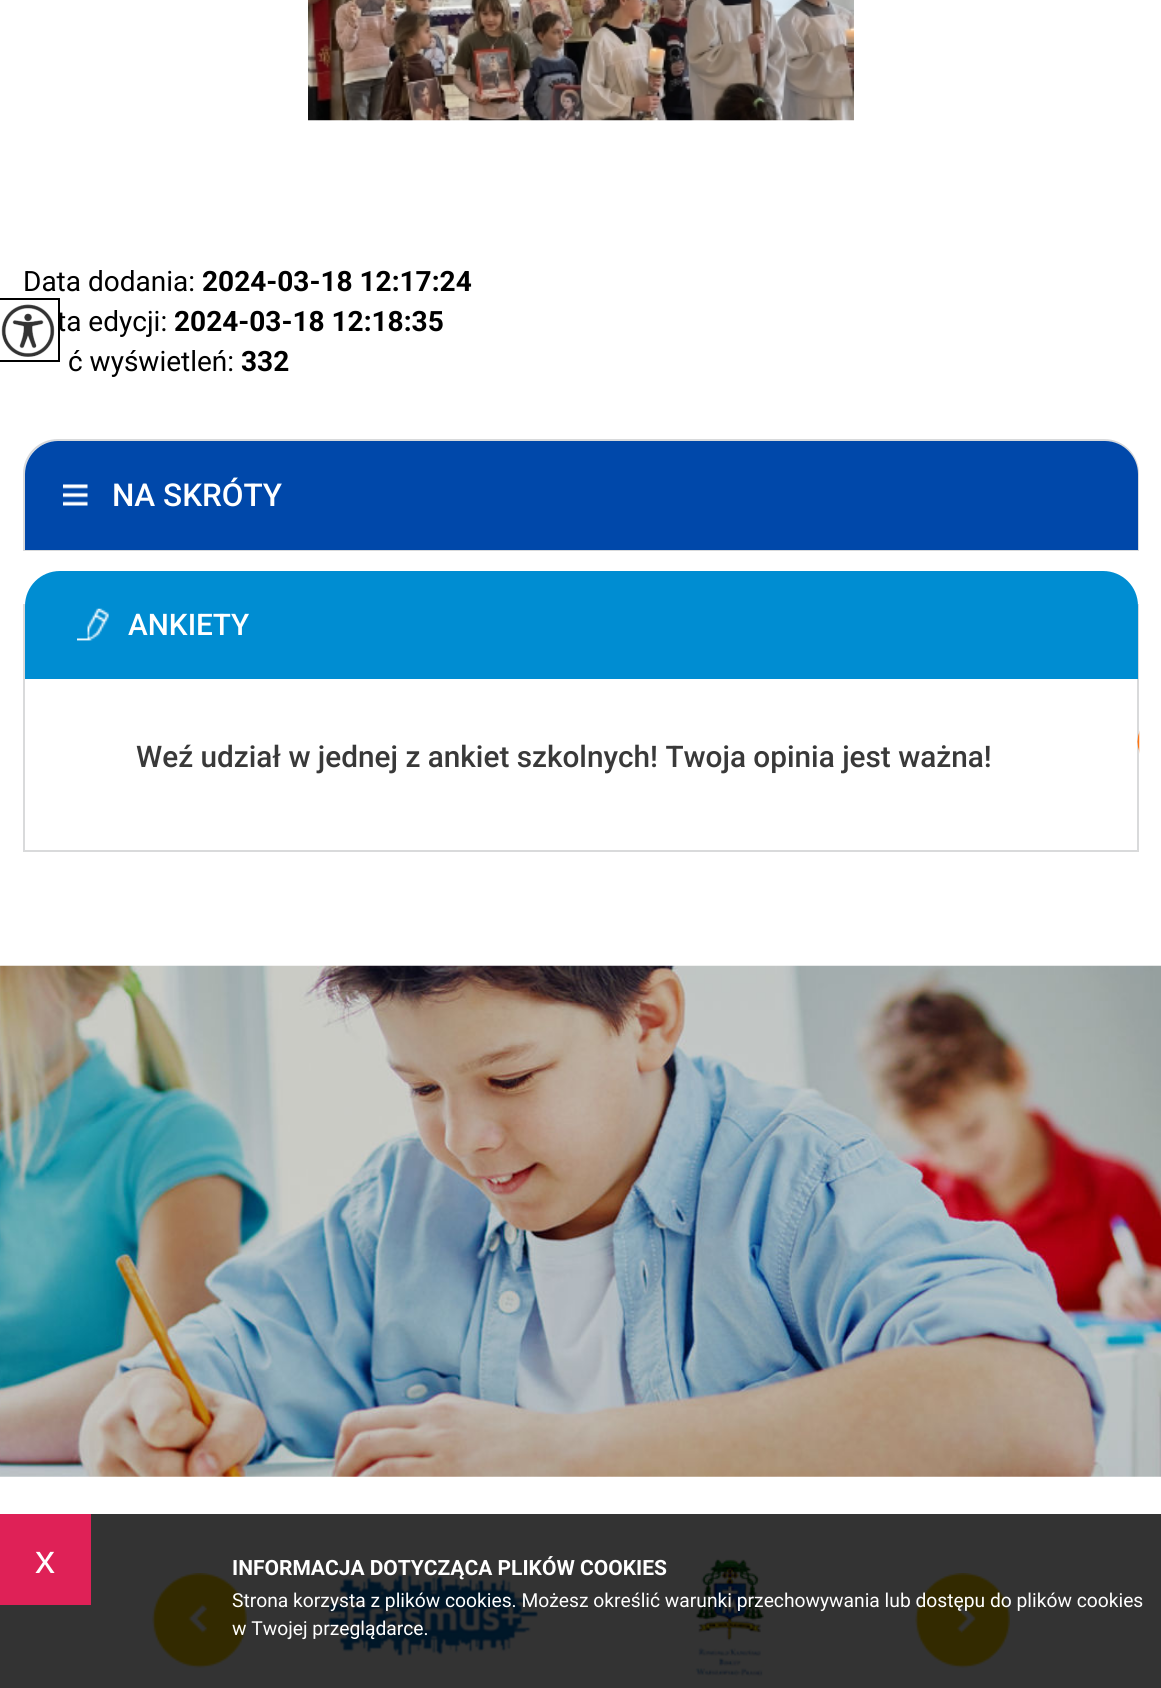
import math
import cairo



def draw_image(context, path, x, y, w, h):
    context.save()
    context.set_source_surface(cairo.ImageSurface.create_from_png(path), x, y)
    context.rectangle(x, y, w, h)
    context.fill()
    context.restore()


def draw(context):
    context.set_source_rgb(1, 1, 1)
    context.paint()
    context.set_source_rgb(51 / 255, 51 / 255, 51 / 255)
    context.rectangle(0, 1514, 1161, 174)
    context.fill()
    draw_image(context, "images/1.png", 308, 0, 546, 121)
    context.new_path()
    context.move_to(58, 440)
    context.line_to(1104, 440)
    context.curve_to(1123, 440, 1138, 455, 1138, 474)
    context.line_to(1138, 550)
    context.line_to(24, 550)
    context.line_to(24, 474)
    context.curve_to(24, 455, 39, 440, 58, 440)
    context.close_path()
    context.set_source_rgb(217 / 255, 218 / 255, 219 / 255)
    context.stroke()
    context.set_source_rgb(0, 72 / 255, 170 / 255)
    context.new_path()
    context.move_to(58, 441)
    context.line_to(1105, 441)
    context.curve_to(1123, 441, 1138, 456, 1138, 474)
    context.line_to(1138, 550)
    context.line_to(25, 550)
    context.line_to(25, 474)
    context.curve_to(25, 456, 40, 441, 58, 441)
    context.close_path()
    context.fill()
    draw_image(context, "images/2.png", 63, 484, 25, 22)
    context.rectangle(24, 605, 1114, 246)
    context.set_source_rgb(217 / 255, 218 / 255, 219 / 255)
    context.stroke()
    context.set_source_rgb(0, 141 / 255, 210 / 255)
    context.new_path()
    context.move_to(60, 571)
    context.line_to(1103, 571)
    context.curve_to(1122.5, 571, 1138, 586.5, 1138, 606)
    context.line_to(1138, 679)
    context.line_to(25, 679)
    context.line_to(25, 606)
    context.curve_to(25, 586.5, 40.5, 571, 60, 571)
    context.close_path()
    context.fill()
    draw_image(context, "images/3.png", 77, 608, 32, 33)
    draw_image(context, "images/4.png", 1137, 730, 3, 24)
    draw_image(context, "images/6.png", 0, 965, 1161, 512)
    context.set_source_rgb(223 / 255, 33 / 255, 87 / 255)
    context.rectangle(0, 1514, 91, 91)
    context.fill()
    draw_image(context, "images/7.png", 328, 1574, 210, 82)
    draw_image(context, "images/8.png", 684, 1556, 84, 127)
    draw_image(context, "images/9.png", 152, 1573, 95, 95)
    draw_image(context, "images/10.png", 915, 1573, 95, 95)
    context.select_font_face("Roboto")
    context.set_font_size(28)
    context.set_source_rgb(0, 0, 0)
    context.move_to(23, 291)
    context.show_text("Data dodania:")
    context.select_font_face("Roboto", cairo.FontSlant.NORMAL, cairo.FontWeight.BOLD)
    context.move_to(202, 291)
    context.show_text("2024-03-18 12:17:24")
    context.select_font_face("Roboto")
    context.move_to(57, 331)
    context.show_text("ta edycji:")
    context.select_font_face("Roboto", cairo.FontSlant.NORMAL, cairo.FontWeight.BOLD)
    context.move_to(174, 331)
    context.show_text("2024-03-18 12:18:35")
    context.select_font_face("Roboto")
    context.move_to(68, 371)
    context.show_text("ć wyświetleń:")
    context.select_font_face("Roboto", cairo.FontSlant.NORMAL, cairo.FontWeight.BOLD)
    context.move_to(241, 371)
    context.show_text("332")
    context.select_font_face("Roboto Medium")
    context.set_font_size(31.5)
    context.set_source_rgb(1, 1, 1)
    context.move_to(112, 506)
    context.show_text("NA SKRÓTY")
    context.set_font_size(29.75)
    context.move_to(128, 635)
    context.show_text("ANKIETY")
    context.set_source_rgb(57 / 255, 57 / 255, 57 / 255)
    context.move_to(136, 767)
    context.show_text("Weź udział w jednej z ankiet szkolnych! Twoja opinia jest ważna!")
    context.set_source_rgb(1, 1, 1)
    context.rectangle(56, 316, 2, 3)
    context.fill()
    context.rectangle(-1, 299, 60, 62)
    context.set_source_rgb(0, 0, 0)
    context.stroke()
    draw_image(context, "images/5.png", 1, 304, 54, 53)
    context.select_font_face("Liberation Sans")
    context.set_font_size(40)
    context.set_source_rgb(1, 1, 1)
    context.move_to(35, 1573)
    context.show_text("x")
    context.select_font_face("Roboto", cairo.FontSlant.NORMAL, cairo.FontWeight.BOLD)
    context.set_font_size(21)
    context.move_to(232, 1575)
    context.show_text("INFORMACJA DOTYCZĄCA PLIKÓW COOKIES")
    context.select_font_face("Roboto")
    context.set_font_size(19.25)
    context.move_to(232, 1607)
    context.show_text("Strona korzysta z plików cookies. Możesz określić warunki przechowywania lub dostępu do plików cookies")
    context.move_to(232, 1635)
    context.show_text("w Twojej przeglądarce.")


surface = cairo.ImageSurface(cairo.Format.RGB24, 1161, 1688)
context = cairo.Context(surface)
options = cairo.FontOptions()
options.set_hint_metrics(cairo.HintMetrics.OFF)
options.set_hint_style(cairo.HintStyle.NONE)
context.set_font_options(options)
context.set_miter_limit(4)
draw(context)
surface.write_to_png("out.png")
